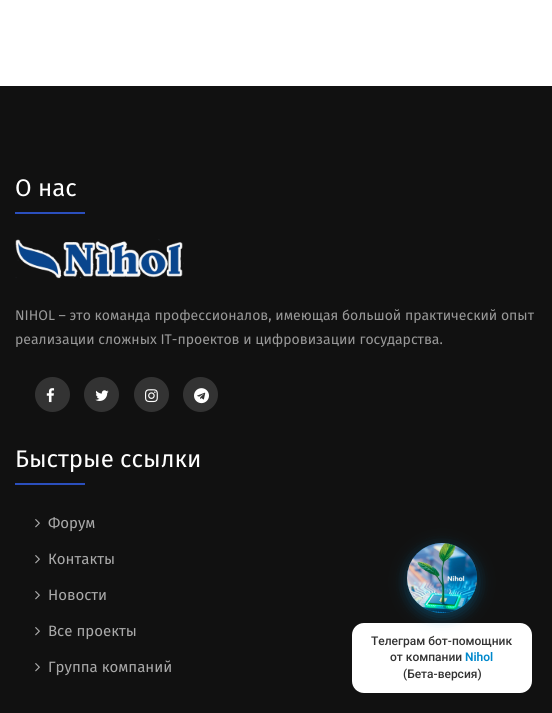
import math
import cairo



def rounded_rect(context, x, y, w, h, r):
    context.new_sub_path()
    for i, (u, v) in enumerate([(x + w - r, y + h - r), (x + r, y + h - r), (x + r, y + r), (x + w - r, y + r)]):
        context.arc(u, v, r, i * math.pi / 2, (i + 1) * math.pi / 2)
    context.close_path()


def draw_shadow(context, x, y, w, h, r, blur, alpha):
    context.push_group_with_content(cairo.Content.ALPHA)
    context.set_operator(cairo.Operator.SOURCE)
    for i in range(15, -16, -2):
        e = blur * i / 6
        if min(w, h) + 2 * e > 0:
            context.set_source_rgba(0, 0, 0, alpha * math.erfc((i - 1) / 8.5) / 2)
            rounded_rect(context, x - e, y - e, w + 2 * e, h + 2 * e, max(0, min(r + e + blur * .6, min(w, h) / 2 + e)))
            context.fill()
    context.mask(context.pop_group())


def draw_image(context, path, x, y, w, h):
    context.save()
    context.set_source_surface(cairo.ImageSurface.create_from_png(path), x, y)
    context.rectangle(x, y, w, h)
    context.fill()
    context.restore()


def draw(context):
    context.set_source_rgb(1, 1, 1)
    context.paint()
    context.set_source_rgb(17 / 255, 17 / 255, 17 / 255)
    context.rectangle(0, 86, 552, 627)
    context.fill()
    context.set_source_rgb(43 / 255, 79 / 255, 189 / 255)
    context.rectangle(15, 212, 70, 2)
    context.fill()
    draw_image(context, "images/1.png", 15, 239, 169, 40)
    context.set_source_rgb(51 / 255, 51 / 255, 51 / 255)
    context.arc(52.5, 394.5, 17.5, 0, 2 * math.pi)
    context.fill()
    draw_image(context, "images/2.png", 46, 388, 9, 15)
    context.arc(101.5, 394.5, 17.5, 0, 2 * math.pi)
    context.fill()
    draw_image(context, "images/3.png", 95, 390, 14, 11)
    context.arc(151.5, 394.5, 17.5, 0, 2 * math.pi)
    context.fill()
    draw_image(context, "images/4.png", 145, 389, 13, 14)
    context.arc(200.5, 394.5, 17.5, 0, 2 * math.pi)
    context.fill()
    draw_image(context, "images/5.png", 194, 388, 15, 16)
    context.set_source_rgb(43 / 255, 79 / 255, 189 / 255)
    context.rectangle(15, 483, 70, 2)
    context.fill()
    draw_image(context, "images/6.png", 35, 519, 5, 9)
    draw_image(context, "images/6.png", 35, 555, 5, 9)
    draw_image(context, "images/6.png", 35, 591, 5, 9)
    draw_image(context, "images/6.png", 35, 627, 5, 9)
    draw_image(context, "images/6.png", 35, 663, 5, 9)
    gradient = cairo.LinearGradient(407, 543, 477, 613)
    gradient.add_color_stop_rgba(0, 7 / 255, 88 / 255, 129 / 255, 1)
    gradient.add_color_stop_rgba(1, 27 / 255, 102 / 255, 137 / 255, 1)
    context.set_source(gradient)
    context.arc(442, 578, 35, 0, 2 * math.pi)
    context.fill()
    context.set_source_rgb(1, 1, 1)
    rounded_rect(context, 352, 623, 180, 70, 12)
    context.fill()
    context.set_source_rgb(0, 136 / 255, 204 / 255)
    draw_shadow(context, 407, 547, 70, 70, 35, 7.5, 0.4)
    draw_image(context, "images/7.png", 407, 543, 70, 70)
    context.select_font_face("Fira Sans")
    context.set_font_size(24)
    context.set_source_rgb(1, 1, 1)
    context.move_to(15, 196)
    context.show_text("О нас")
    context.set_font_size(14)
    context.set_source_rgb(153 / 255, 153 / 255, 153 / 255)
    context.move_to(15, 320)
    context.show_text("NIHOL – это команда профессионалов, имеющая большой практический опыт")
    context.move_to(15, 344)
    context.show_text("реализации сложных IT-проектов и цифровизации государства.")
    context.set_font_size(24)
    context.set_source_rgb(1, 1, 1)
    context.move_to(15, 467)
    context.show_text("Быстрые ссылки")
    context.set_font_size(15)
    context.set_source_rgb(170 / 255, 170 / 255, 170 / 255)
    context.move_to(48, 528)
    context.show_text("Форум")
    context.move_to(48, 564)
    context.show_text("Контакты")
    context.move_to(48, 600)
    context.show_text("Новости")
    context.move_to(48, 636)
    context.show_text("Все проекты")
    context.move_to(48, 672)
    context.show_text("Группа компаний")
    context.select_font_face("Roboto Medium")
    context.set_font_size(12)
    context.set_source_rgb(51 / 255, 51 / 255, 51 / 255)
    context.move_to(371, 645)
    context.show_text("Телеграм бот-помощник")
    context.move_to(390, 661)
    context.show_text("от компании")
    context.select_font_face("Roboto SemiBold")
    context.set_source_rgb(0, 136 / 255, 204 / 255)
    context.move_to(465, 661)
    context.show_text("Nihol")
    context.select_font_face("Roboto Medium")
    context.set_source_rgb(51 / 255, 51 / 255, 51 / 255)
    context.move_to(403, 678)
    context.show_text("(Бета-версия)")


surface = cairo.ImageSurface(cairo.Format.RGB24, 552, 713)
context = cairo.Context(surface)
options = cairo.FontOptions()
options.set_hint_metrics(cairo.HintMetrics.OFF)
options.set_hint_style(cairo.HintStyle.NONE)
context.set_font_options(options)
context.set_miter_limit(4)
draw(context)
surface.write_to_png("out.png")
